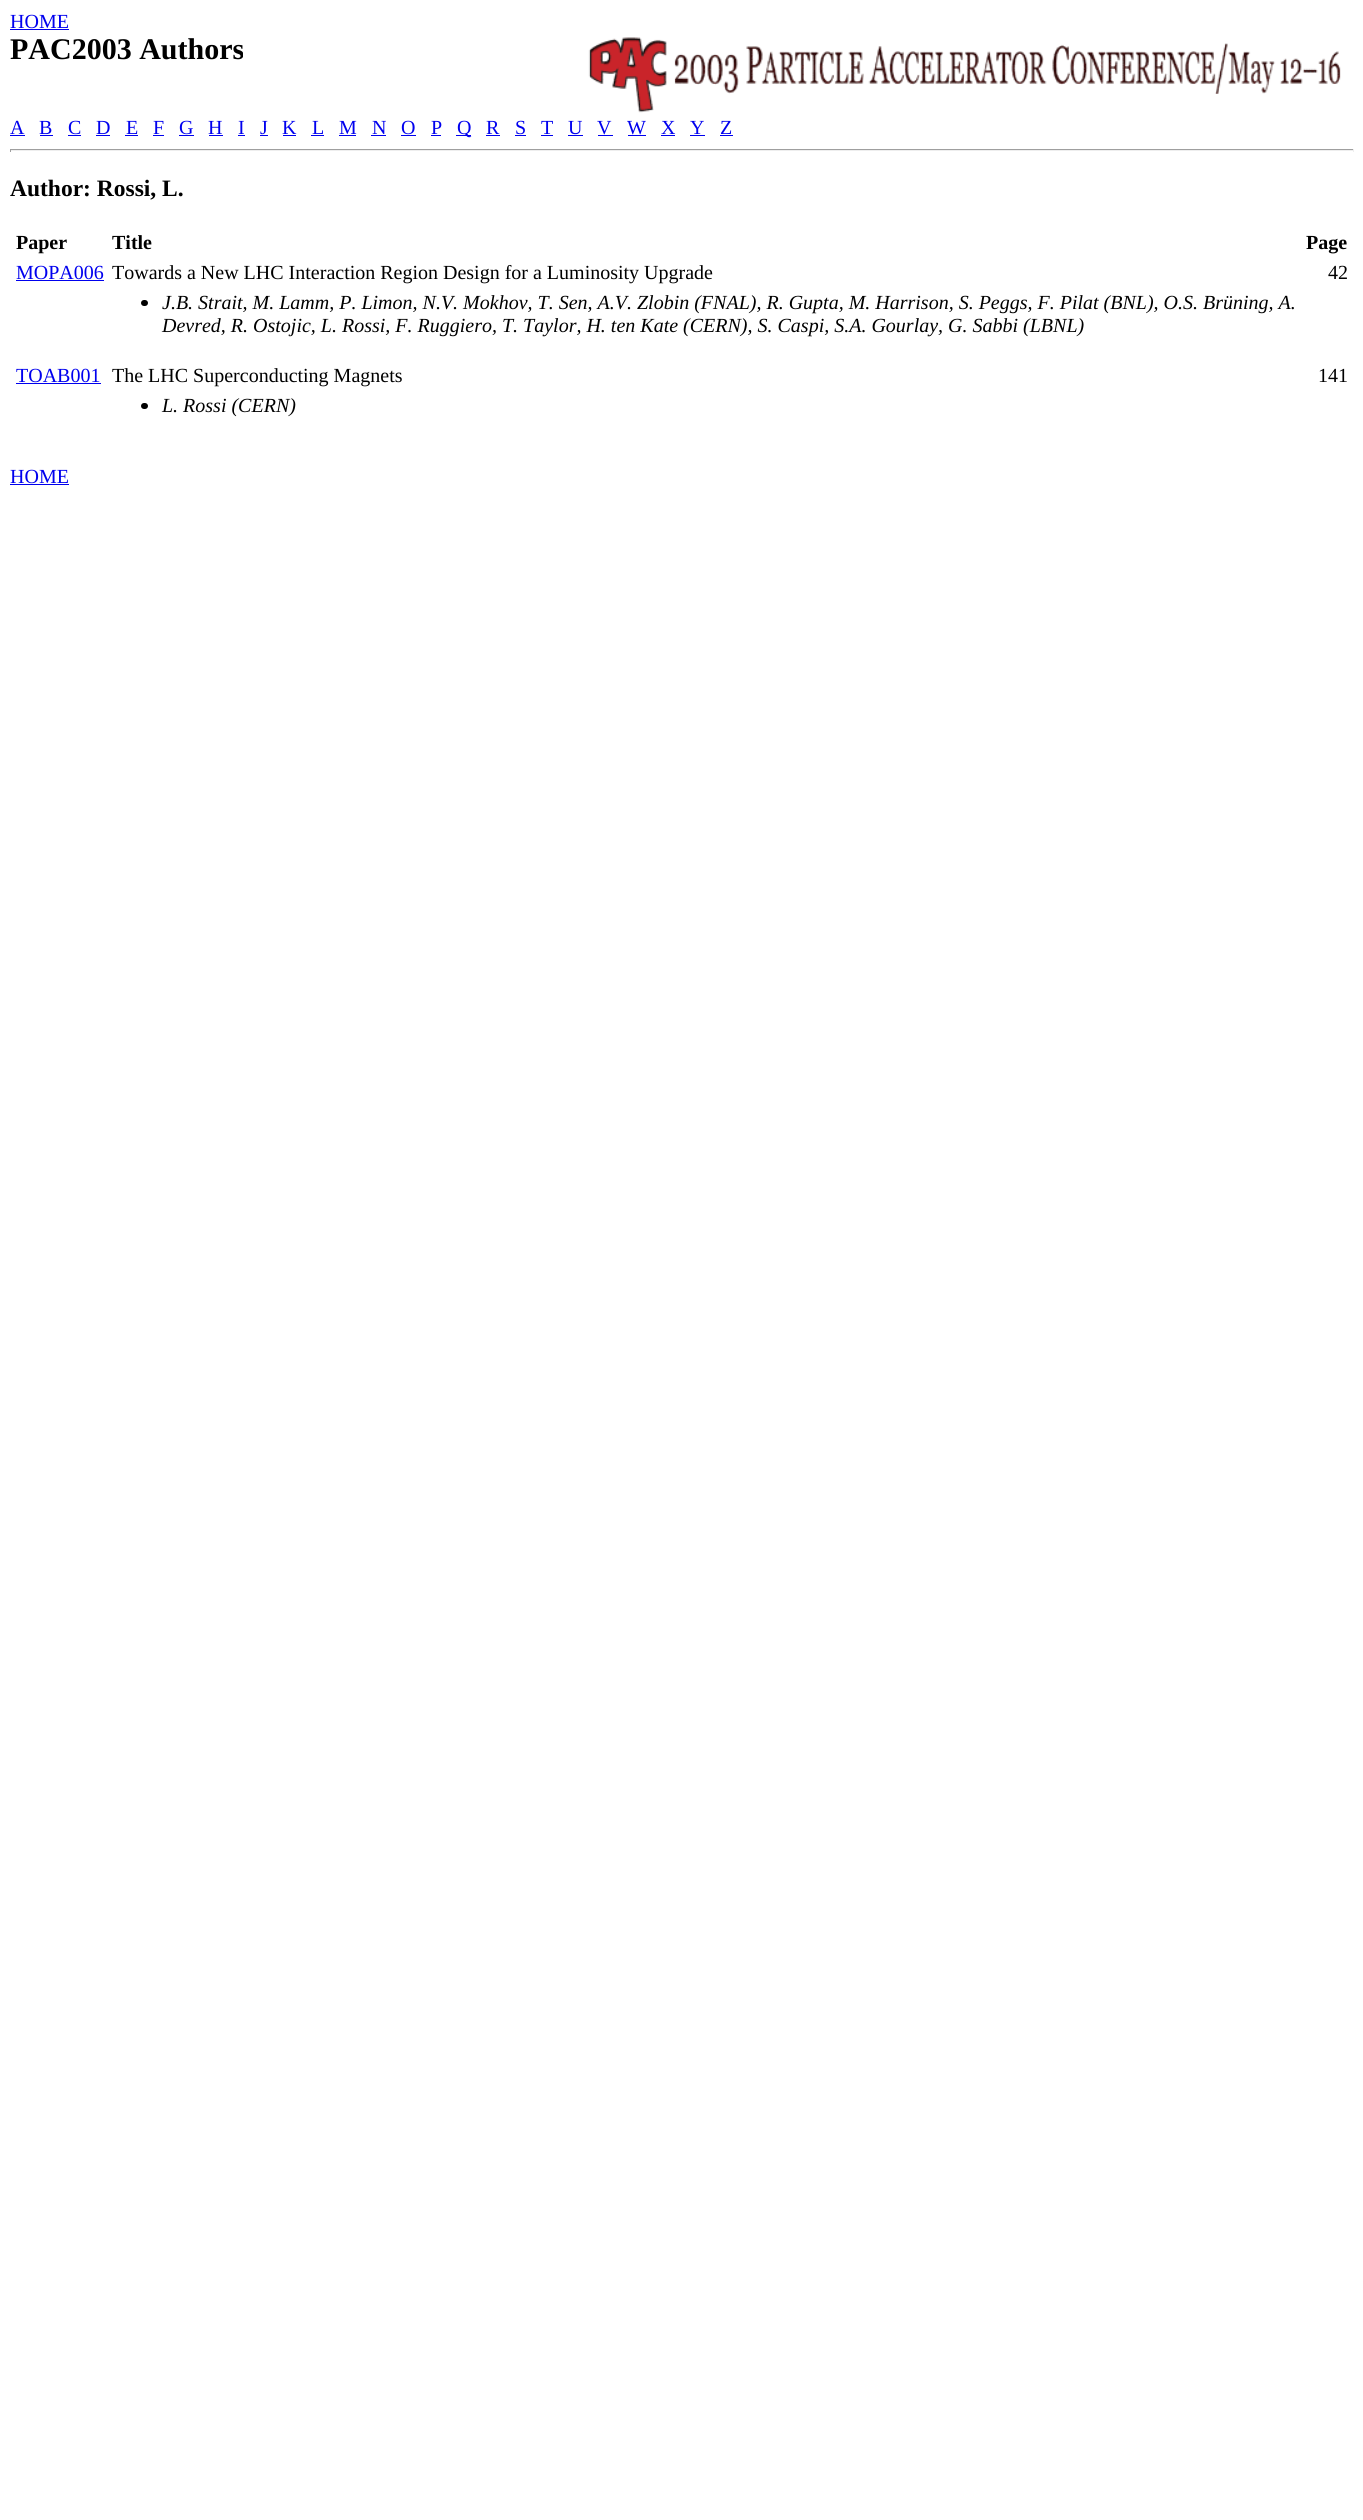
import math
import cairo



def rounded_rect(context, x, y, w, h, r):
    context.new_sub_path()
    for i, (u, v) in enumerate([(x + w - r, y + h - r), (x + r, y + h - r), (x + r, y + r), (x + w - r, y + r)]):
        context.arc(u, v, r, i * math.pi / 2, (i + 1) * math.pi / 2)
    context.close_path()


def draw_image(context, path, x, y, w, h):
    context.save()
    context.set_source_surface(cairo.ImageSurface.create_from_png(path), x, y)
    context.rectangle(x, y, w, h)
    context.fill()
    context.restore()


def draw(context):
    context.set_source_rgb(1, 1, 1)
    context.paint()
    context.set_source_rgb(0, 0, 238 / 255)
    context.rectangle(10, 29, 59, 1)
    context.fill()
    draw_image(context, "images/1.png", 588, 37, 753, 76)
    context.rectangle(10, 135, 15, 1)
    context.fill()
    context.rectangle(40, 135, 13, 1)
    context.fill()
    context.rectangle(68, 135, 13, 1)
    context.fill()
    context.rectangle(96, 135, 14, 1)
    context.fill()
    context.rectangle(125, 135, 13, 1)
    context.fill()
    context.rectangle(153, 135, 11, 1)
    context.fill()
    context.rectangle(179, 135, 15, 1)
    context.fill()
    context.rectangle(209, 135, 14, 1)
    context.fill()
    context.rectangle(238, 135, 7, 1)
    context.fill()
    context.rectangle(260, 135, 8, 1)
    context.fill()
    context.rectangle(283, 135, 13, 1)
    context.fill()
    context.rectangle(311, 135, 13, 1)
    context.fill()
    context.rectangle(339, 135, 17, 1)
    context.fill()
    context.rectangle(371, 135, 15, 1)
    context.fill()
    context.rectangle(401, 135, 15, 1)
    context.fill()
    context.rectangle(431, 135, 10, 1)
    context.fill()
    context.rectangle(456, 135, 15, 1)
    context.fill()
    context.rectangle(486, 135, 14, 1)
    context.fill()
    context.rectangle(515, 135, 11, 1)
    context.fill()
    context.rectangle(541, 135, 12, 1)
    context.fill()
    context.rectangle(568, 135, 15, 1)
    context.fill()
    context.rectangle(598, 135, 15, 1)
    context.fill()
    context.rectangle(628, 135, 18, 1)
    context.fill()
    context.rectangle(661, 135, 14, 1)
    context.fill()
    context.rectangle(690, 135, 15, 1)
    context.fill()
    context.rectangle(720, 135, 13, 1)
    context.fill()
    context.set_source_rgb(159 / 255, 159 / 255, 159 / 255)
    context.rectangle(10, 149, 1344, 1)
    context.fill()
    context.set_source_rgb(238 / 255, 238 / 255, 238 / 255)
    context.rectangle(1353, 149, 1, 3)
    context.fill()
    context.rectangle(10, 150, 1344, 1)
    context.fill()
    context.set_source_rgb(159 / 255, 159 / 255, 159 / 255)
    context.rectangle(10, 149, 1, 3)
    context.fill()
    context.set_source_rgb(0, 0, 238 / 255)
    context.rectangle(16, 280, 88, 1)
    context.fill()
    context.set_source_rgb(0, 0, 0)
    rounded_rect(context, 141, 300, 7, 6, 3)
    context.fill()
    context.set_source_rgb(0, 0, 238 / 255)
    context.rectangle(16, 383, 85, 1)
    context.fill()
    context.set_source_rgb(0, 0, 0)
    rounded_rect(context, 141, 403, 7, 6, 3)
    context.fill()
    context.set_source_rgb(0, 0, 238 / 255)
    context.rectangle(10, 484, 59, 1)
    context.fill()
    context.select_font_face("Liberation Serif")
    context.set_font_size(20)
    context.move_to(10, 28)
    context.show_text("HOME")
    context.select_font_face("Liberation Serif", cairo.FontSlant.NORMAL, cairo.FontWeight.BOLD)
    context.set_font_size(30)
    context.set_source_rgb(0, 0, 0)
    context.move_to(10, 59)
    context.show_text("PAC2003 Authors")
    context.select_font_face("Liberation Serif")
    context.set_font_size(20)
    context.set_source_rgb(0, 0, 238 / 255)
    context.move_to(10, 134)
    context.show_text("A")
    context.move_to(39, 134)
    context.show_text("B")
    context.move_to(68, 134)
    context.show_text("C")
    context.move_to(96, 134)
    context.show_text("D")
    context.move_to(126, 134)
    context.show_text("E")
    context.move_to(153, 134)
    context.show_text("F")
    context.move_to(179, 134)
    context.show_text("G")
    context.move_to(208, 134)
    context.show_text("H")
    context.move_to(238, 134)
    context.show_text("I")
    context.move_to(260, 134)
    context.show_text("J")
    context.move_to(282, 134)
    context.show_text("K")
    context.move_to(312, 134)
    context.show_text("L")
    context.move_to(339, 134)
    context.show_text("M")
    context.move_to(372, 134)
    context.show_text("N")
    context.move_to(401, 134)
    context.show_text("O")
    context.move_to(431, 134)
    context.show_text("P")
    context.move_to(457, 134)
    context.show_text("Q")
    context.move_to(486, 134)
    context.show_text("R")
    context.move_to(515, 134)
    context.show_text("S")
    context.move_to(541, 134)
    context.show_text("T")
    context.move_to(568, 134)
    context.show_text("U")
    context.move_to(597, 134)
    context.show_text("V")
    context.move_to(627, 134)
    context.show_text("W")
    context.move_to(661, 134)
    context.show_text("X")
    context.move_to(690, 134)
    context.show_text("Y")
    context.move_to(720, 134)
    context.show_text("Z")
    context.select_font_face("Liberation Serif", cairo.FontSlant.NORMAL, cairo.FontWeight.BOLD)
    context.set_font_size(23.5)
    context.set_source_rgb(0, 0, 0)
    context.move_to(10, 196)
    context.show_text("Author: Rossi, L.")
    context.set_font_size(20)
    context.move_to(16, 249)
    context.show_text("Paper")
    context.move_to(112, 249)
    context.show_text("Title")
    context.move_to(1306, 249)
    context.show_text("Page")
    context.select_font_face("Liberation Serif")
    context.set_source_rgb(0, 0, 238 / 255)
    context.move_to(16, 279)
    context.show_text("MOPA006")
    context.set_source_rgb(0, 0, 0)
    context.move_to(112, 279)
    context.show_text("Towards a New LHC Interaction Region Design for a Luminosity Upgrade")
    context.move_to(1328, 279)
    context.show_text("42")
    context.select_font_face("Liberation Serif", cairo.FontSlant.ITALIC)
    context.move_to(162, 309)
    context.show_text("J.B. Strait, M. Lamm, P. Limon, N.V. Mokhov, T. Sen, A.V. Zlobin (FNAL), R. Gupta, M. Harrison, S. Peggs, F. Pilat (BNL), O.S. Brüning, A.")
    context.move_to(162, 332)
    context.show_text("Devred, R. Ostojic, L. Rossi, F. Ruggiero, T. Taylor, H. ten Kate (CERN), S. Caspi, S.A. Gourlay, G. Sabbi (LBNL)")
    context.select_font_face("Liberation Serif")
    context.set_source_rgb(0, 0, 238 / 255)
    context.move_to(16, 382)
    context.show_text("TOAB001")
    context.set_source_rgb(0, 0, 0)
    context.move_to(112, 382)
    context.show_text("The LHC Superconducting Magnets")
    context.move_to(1318, 382)
    context.show_text("141")
    context.select_font_face("Liberation Serif", cairo.FontSlant.ITALIC)
    context.move_to(162, 412)
    context.show_text("L. Rossi (CERN)")
    context.select_font_face("Liberation Serif")
    context.set_source_rgb(0, 0, 238 / 255)
    context.move_to(10, 483)
    context.show_text("HOME")


surface = cairo.ImageSurface(cairo.Format.RGB24, 1363, 2520)
context = cairo.Context(surface)
options = cairo.FontOptions()
options.set_hint_metrics(cairo.HintMetrics.OFF)
options.set_hint_style(cairo.HintStyle.NONE)
context.set_font_options(options)
context.set_miter_limit(4)
draw(context)
surface.write_to_png("out.png")
